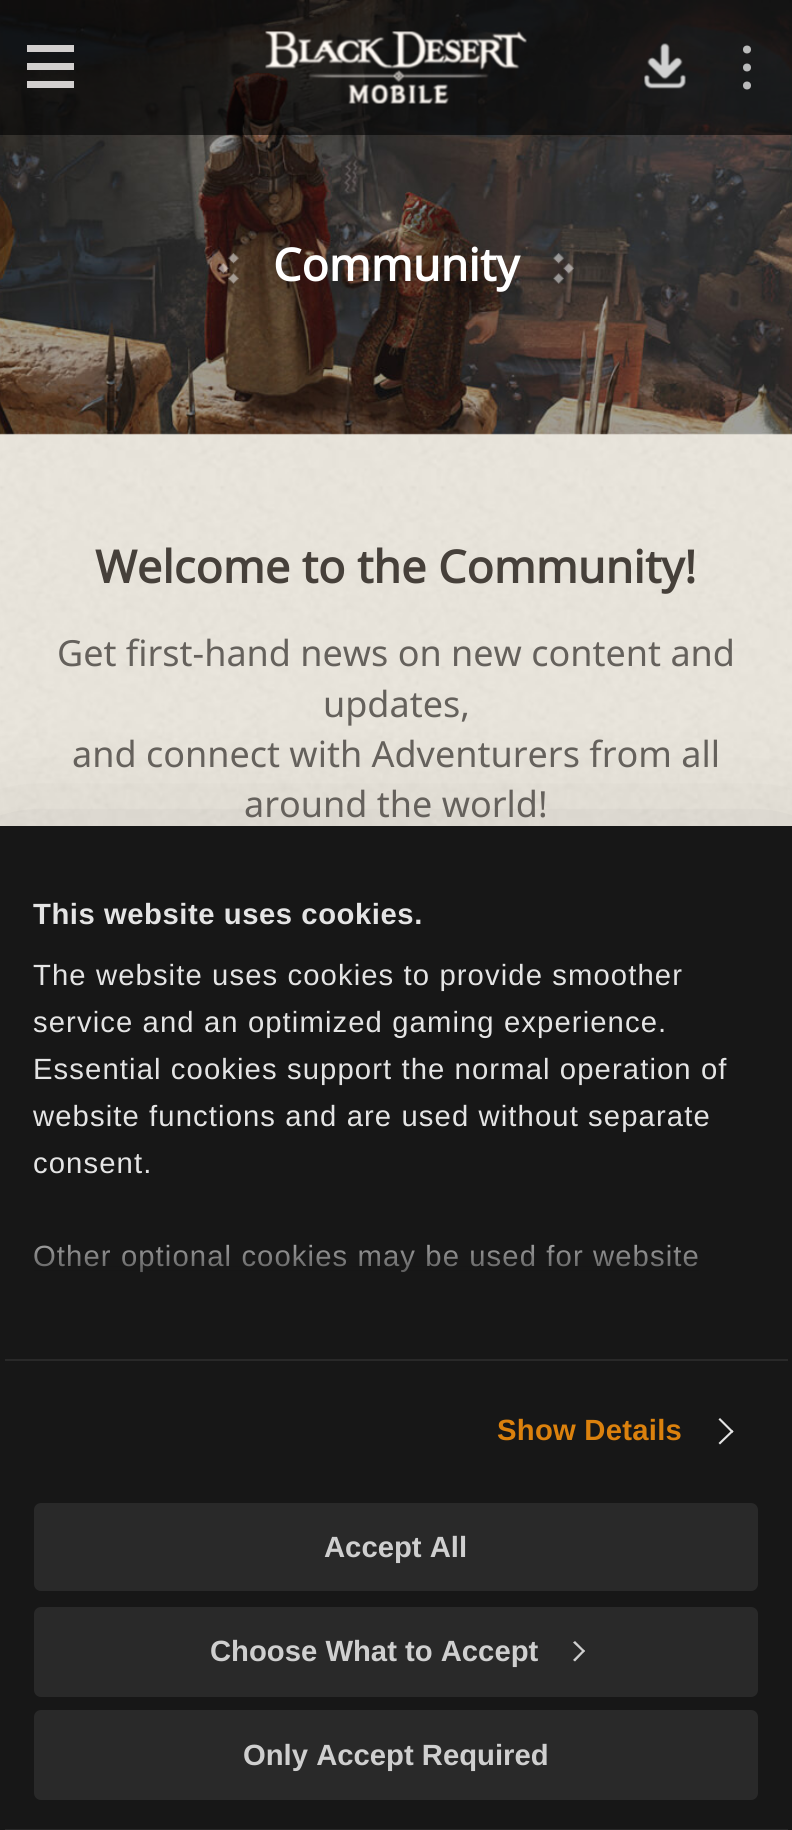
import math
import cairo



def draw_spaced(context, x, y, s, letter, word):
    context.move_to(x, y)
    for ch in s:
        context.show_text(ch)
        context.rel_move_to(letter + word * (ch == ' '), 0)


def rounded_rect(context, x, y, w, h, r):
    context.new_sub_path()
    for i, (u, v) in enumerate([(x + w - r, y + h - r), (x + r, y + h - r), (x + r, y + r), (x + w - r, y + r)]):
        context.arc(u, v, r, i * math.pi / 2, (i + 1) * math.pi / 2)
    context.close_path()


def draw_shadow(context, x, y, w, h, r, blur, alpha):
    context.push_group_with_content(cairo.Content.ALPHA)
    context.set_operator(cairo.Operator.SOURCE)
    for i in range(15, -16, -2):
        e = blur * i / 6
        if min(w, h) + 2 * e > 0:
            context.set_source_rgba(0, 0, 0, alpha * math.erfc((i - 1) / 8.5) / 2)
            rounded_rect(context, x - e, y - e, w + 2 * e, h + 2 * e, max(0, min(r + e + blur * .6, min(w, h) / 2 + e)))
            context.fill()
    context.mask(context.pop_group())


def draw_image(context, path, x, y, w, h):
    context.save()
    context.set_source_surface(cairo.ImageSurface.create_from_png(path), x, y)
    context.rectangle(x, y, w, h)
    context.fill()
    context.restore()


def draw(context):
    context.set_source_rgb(1, 1, 1)
    context.paint()
    draw_image(context, "images/1.png", 0, 434, 792, 392)
    draw_image(context, "images/4.png", 0, 0, 792, 435)
    context.set_source_rgba(0, 0, 0, 0.6)
    context.rectangle(0, 0, 792, 135)
    context.fill()
    context.set_source_rgb(210 / 255, 207 / 255, 206 / 255)
    context.rectangle(27, 45, 47, 7)
    context.fill()
    context.rectangle(27, 63, 47, 7)
    context.fill()
    context.rectangle(27, 81, 47, 7)
    context.fill()
    draw_image(context, "images/2.png", 265, 31, 262, 73)
    draw_image(context, "images/3.png", 644, 43, 42, 46)
    context.set_source_rgb(186 / 255, 187 / 255, 187 / 255)
    context.arc(747, 49.5, 4, 0, 2 * math.pi)
    context.fill()
    context.set_source_rgb(186 / 255, 186 / 255, 187 / 255)
    context.arc(747, 67.5, 4, 0, 2 * math.pi)
    context.fill()
    context.arc(747, 85.5, 4, 0, 2 * math.pi)
    context.fill()
    draw_image(context, "images/5.png", 218, 253, 21, 31)
    draw_image(context, "images/6.png", 553, 253, 21, 31)
    context.set_source_rgb(0, 0, 0)
    draw_shadow(context, -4, 898, 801, 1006, 0, 76.5, 0.3)
    context.set_source_rgb(23 / 255, 23 / 255, 23 / 255)
    context.rectangle(0, 826, 792, 1004)
    context.fill()
    context.set_source_rgb(41 / 255, 41 / 255, 41 / 255)
    context.rectangle(5, 1359, 783, 2)
    context.fill()
    context.set_source_rgb(228 / 255, 228 / 255, 228 / 255)
    context.new_path()
    context.move_to(720, 1418)
    context.line_to(733.5, 1431.5)
    context.line_to(732, 1433)
    context.line_to(718.5, 1419.5)
    context.close_path()
    context.fill()
    context.new_path()
    context.move_to(732, 1430)
    context.line_to(733.5, 1431.5)
    context.line_to(720, 1444.5)
    context.line_to(718.5, 1443)
    context.close_path()
    context.fill()
    context.set_source_rgb(41 / 255, 41 / 255, 41 / 255)
    context.rectangle(5, 1829, 783, 1)
    context.fill()
    rounded_rect(context, 36.5, 1505.5, 719, 83, 4.5)
    context.fill_preserve()
    context.set_line_width(5)
    context.stroke()
    rounded_rect(context, 36.5, 1609.5, 719, 85, 4.5)
    context.fill_preserve()
    context.stroke()
    context.set_source_rgb(207 / 255, 207 / 255, 207 / 255)
    context.new_path()
    context.move_to(575, 1641)
    context.line_to(585, 1651)
    context.line_to(583.5, 1652.5)
    context.line_to(573, 1642.5)
    context.close_path()
    context.fill()
    context.new_path()
    context.move_to(583.5, 1649.5)
    context.line_to(585, 1651)
    context.line_to(575, 1661.5)
    context.line_to(573, 1660)
    context.close_path()
    context.fill()
    context.set_source_rgb(41 / 255, 41 / 255, 41 / 255)
    rounded_rect(context, 36.5, 1712.5, 719, 85, 4.5)
    context.fill_preserve()
    context.stroke()
    context.select_font_face("Noto Sans", cairo.FontSlant.NORMAL, cairo.FontWeight.BOLD)
    context.set_font_size(45)
    context.set_source_rgb(1, 1, 1)
    context.move_to(273, 281)
    context.show_text("Community")
    context.set_source_rgb(70 / 255, 64 / 255, 58 / 255)
    context.move_to(95, 583)
    context.show_text("Welcome to the Community!")
    context.select_font_face("Noto Sans")
    context.set_font_size(36)
    context.set_source_rgb(101 / 255, 97 / 255, 92 / 255)
    context.move_to(57, 666)
    context.show_text("Get first-hand news on new content and")
    context.move_to(323, 717)
    context.show_text("updates,")
    context.move_to(72, 767)
    context.show_text("and connect with Adventurers from all")
    context.move_to(244, 817)
    context.show_text("around the world!")
    context.select_font_face("Liberation Sans", cairo.FontSlant.NORMAL, cairo.FontWeight.BOLD)
    context.set_font_size(29.25)
    context.set_source_rgb(228 / 255, 228 / 255, 228 / 255)
    draw_spaced(context, 33, 924, "This website uses cookies.", 0.55, 0)
    context.select_font_face("Liberation Sans")
    draw_spaced(context, 33, 985, "The website uses cookies to provide smoother", 1.1, 0)
    draw_spaced(context, 33, 1032, "service and an optimized gaming experience.", 1.1, 0)
    draw_spaced(context, 33, 1079, "Essential cookies support the normal operation of", 1.1, 0)
    draw_spaced(context, 33, 1126, "website functions and are used without separate", 1.1, 0)
    draw_spaced(context, 33, 1173, "consent.", 1.1, 0)
    draw_spaced(context, 33, 1266, "Other optional cookies may be used for website", 1.1, 0)
    gradient = cairo.LinearGradient(384, 1359, 384, 1213)
    gradient.add_color_stop_rgba(0, 23 / 255, 23 / 255, 23 / 255, 1)
    gradient.add_color_stop_rgba(0.5, 23 / 255, 23 / 255, 23 / 255, 0.8)
    gradient.add_color_stop_rgba(1, 23 / 255, 23 / 255, 23 / 255, 0)
    context.set_source(gradient)
    context.rectangle(34, 1244, 665, 29)
    context.fill()
    context.select_font_face("Liberation Sans", cairo.FontSlant.NORMAL, cairo.FontWeight.BOLD)
    context.set_source_rgb(219 / 255, 129 / 255, 13 / 255)
    draw_spaced(context, 497, 1440, "Show Details", 0.25, 0)
    context.set_source_rgb(207 / 255, 207 / 255, 207 / 255)
    context.move_to(324, 1557)
    context.show_text("Accept All")
    context.move_to(210, 1661)
    context.show_text("Choose What to Accept")
    context.move_to(243, 1765)
    context.show_text("Only Accept Required")


surface = cairo.ImageSurface(cairo.Format.RGB24, 792, 1830)
context = cairo.Context(surface)
options = cairo.FontOptions()
options.set_hint_metrics(cairo.HintMetrics.OFF)
options.set_hint_style(cairo.HintStyle.NONE)
context.set_font_options(options)
context.set_miter_limit(4)
draw(context)
surface.write_to_png("out.png")
